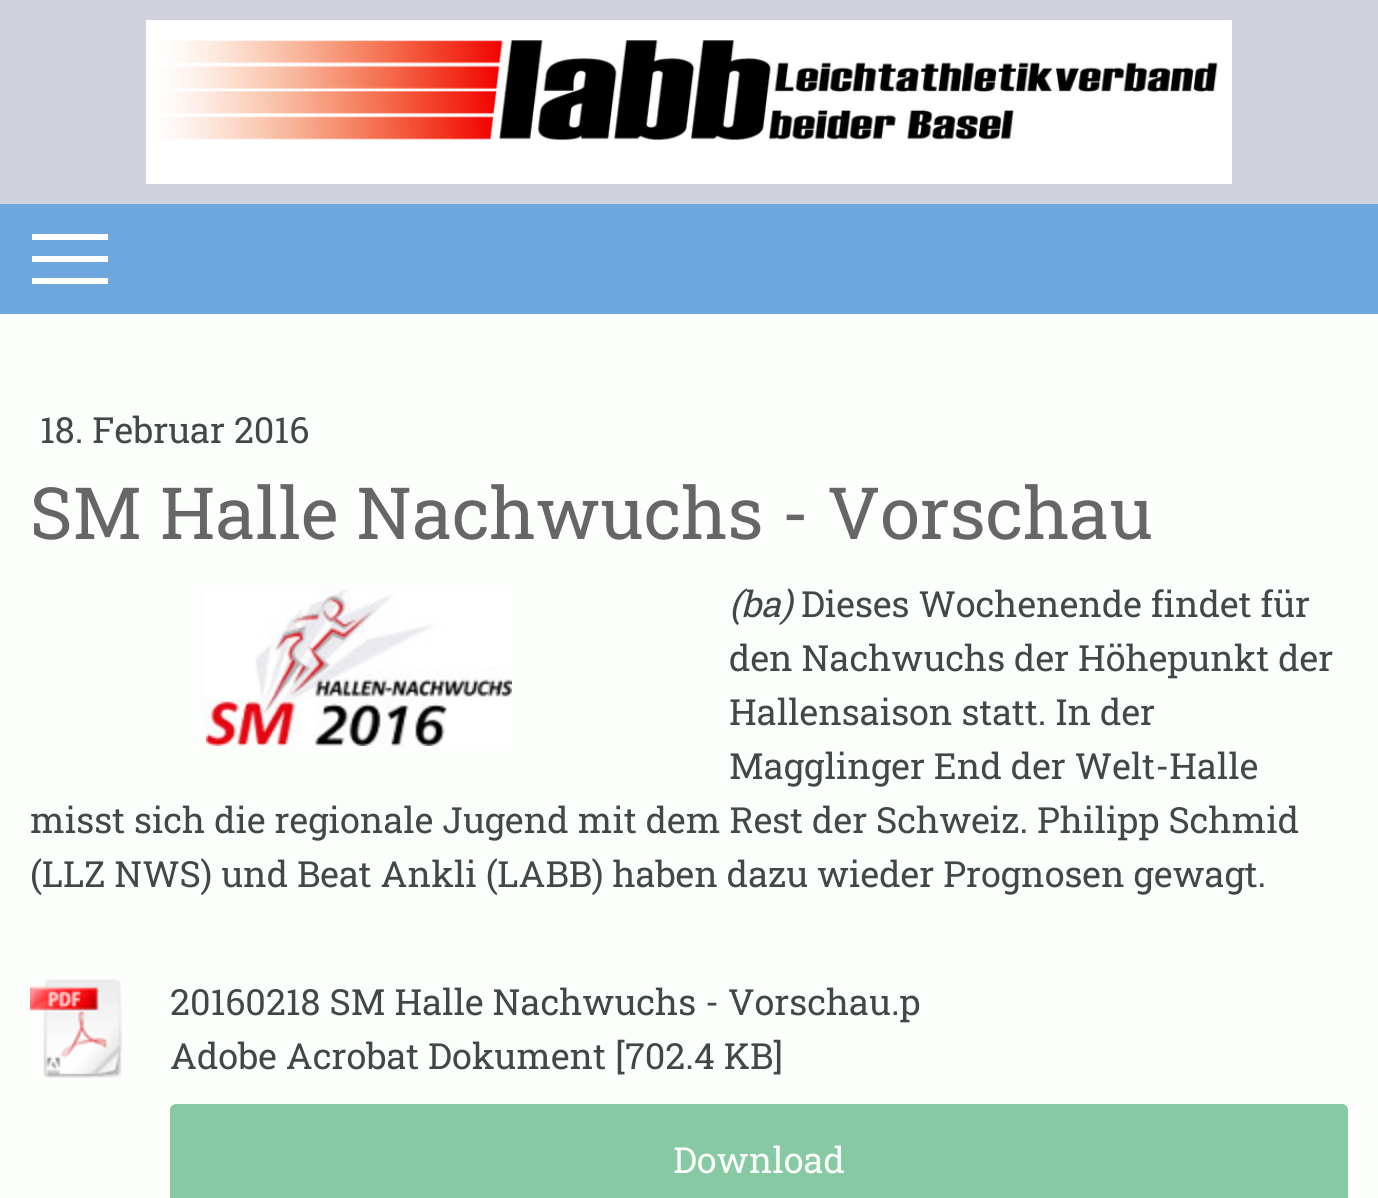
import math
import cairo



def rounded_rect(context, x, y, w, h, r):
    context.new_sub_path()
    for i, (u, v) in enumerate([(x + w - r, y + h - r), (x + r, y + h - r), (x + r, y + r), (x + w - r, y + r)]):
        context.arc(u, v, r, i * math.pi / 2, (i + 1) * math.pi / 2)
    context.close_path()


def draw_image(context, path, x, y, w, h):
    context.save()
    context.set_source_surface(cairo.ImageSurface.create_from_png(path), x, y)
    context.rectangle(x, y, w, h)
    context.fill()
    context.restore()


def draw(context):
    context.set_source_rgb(209 / 255, 210 / 255, 221 / 255)
    context.paint()
    draw_image(context, "images/1.png", 146, 20, 1086, 164)
    context.set_source_rgb(109 / 255, 167 / 255, 222 / 255)
    context.rectangle(0, 204, 1378, 110)
    context.fill()
    context.set_source_rgb(1, 1, 1)
    context.rectangle(32, 256, 76, 6)
    context.fill()
    context.rectangle(32, 234, 76, 6)
    context.fill()
    context.rectangle(32, 278, 76, 6)
    context.fill()
    context.set_source_rgb(252 / 255, 254 / 255, 252 / 255)
    context.rectangle(0, 314, 1378, 884)
    context.fill()
    draw_image(context, "images/2.png", 206, 586, 306, 160)
    draw_image(context, "images/3.png", 30, 979, 92, 99)
    context.set_source_rgb(135 / 255, 201 / 255, 163 / 255)
    rounded_rect(context, 170, 1104, 1178, 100, 6)
    context.fill()
    context.select_font_face("Roboto Slab")
    context.set_font_size(36)
    context.set_source_rgb(67 / 255, 71 / 255, 69 / 255)
    context.move_to(40, 443)
    context.show_text("18. Februar 2016")
    context.set_font_size(72)
    context.set_source_rgb(102 / 255, 102 / 255, 102 / 255)
    context.move_to(30, 539)
    context.show_text("SM Halle Nachwuchs - Vorschau")
    context.select_font_face("Roboto Slab", cairo.FontSlant.ITALIC)
    context.set_font_size(36)
    context.set_source_rgb(67 / 255, 71 / 255, 69 / 255)
    context.move_to(729, 617)
    context.show_text("(ba)")
    context.select_font_face("Roboto Slab")
    context.move_to(801, 617)
    context.show_text("Dieses Wochenende findet für")
    context.move_to(729, 671)
    context.show_text("den Nachwuchs der Höhepunkt der")
    context.move_to(729, 725)
    context.show_text("Hallensaison statt. In der")
    context.move_to(729, 779)
    context.show_text("Magglinger End der Welt-Halle")
    context.move_to(30, 833)
    context.show_text("misst sich die regionale Jugend mit dem Rest der Schweiz. Philipp Schmid")
    context.move_to(30, 887)
    context.show_text("(LLZ NWS) und Beat Ankli (LABB) haben dazu wieder Prognosen gewagt.")
    context.move_to(170, 1015)
    context.show_text("20160218 SM Halle Nachwuchs - Vorschau.p")
    context.move_to(170, 1069)
    context.show_text("Adobe Acrobat Dokument [702.4 KB]")
    context.set_source_rgb(252 / 255, 254 / 255, 252 / 255)
    context.move_to(673, 1173)
    context.show_text("Download")


surface = cairo.ImageSurface(cairo.Format.RGB24, 1378, 1198)
context = cairo.Context(surface)
options = cairo.FontOptions()
options.set_hint_metrics(cairo.HintMetrics.OFF)
options.set_hint_style(cairo.HintStyle.NONE)
context.set_font_options(options)
context.set_miter_limit(4)
draw(context)
surface.write_to_png("out.png")
